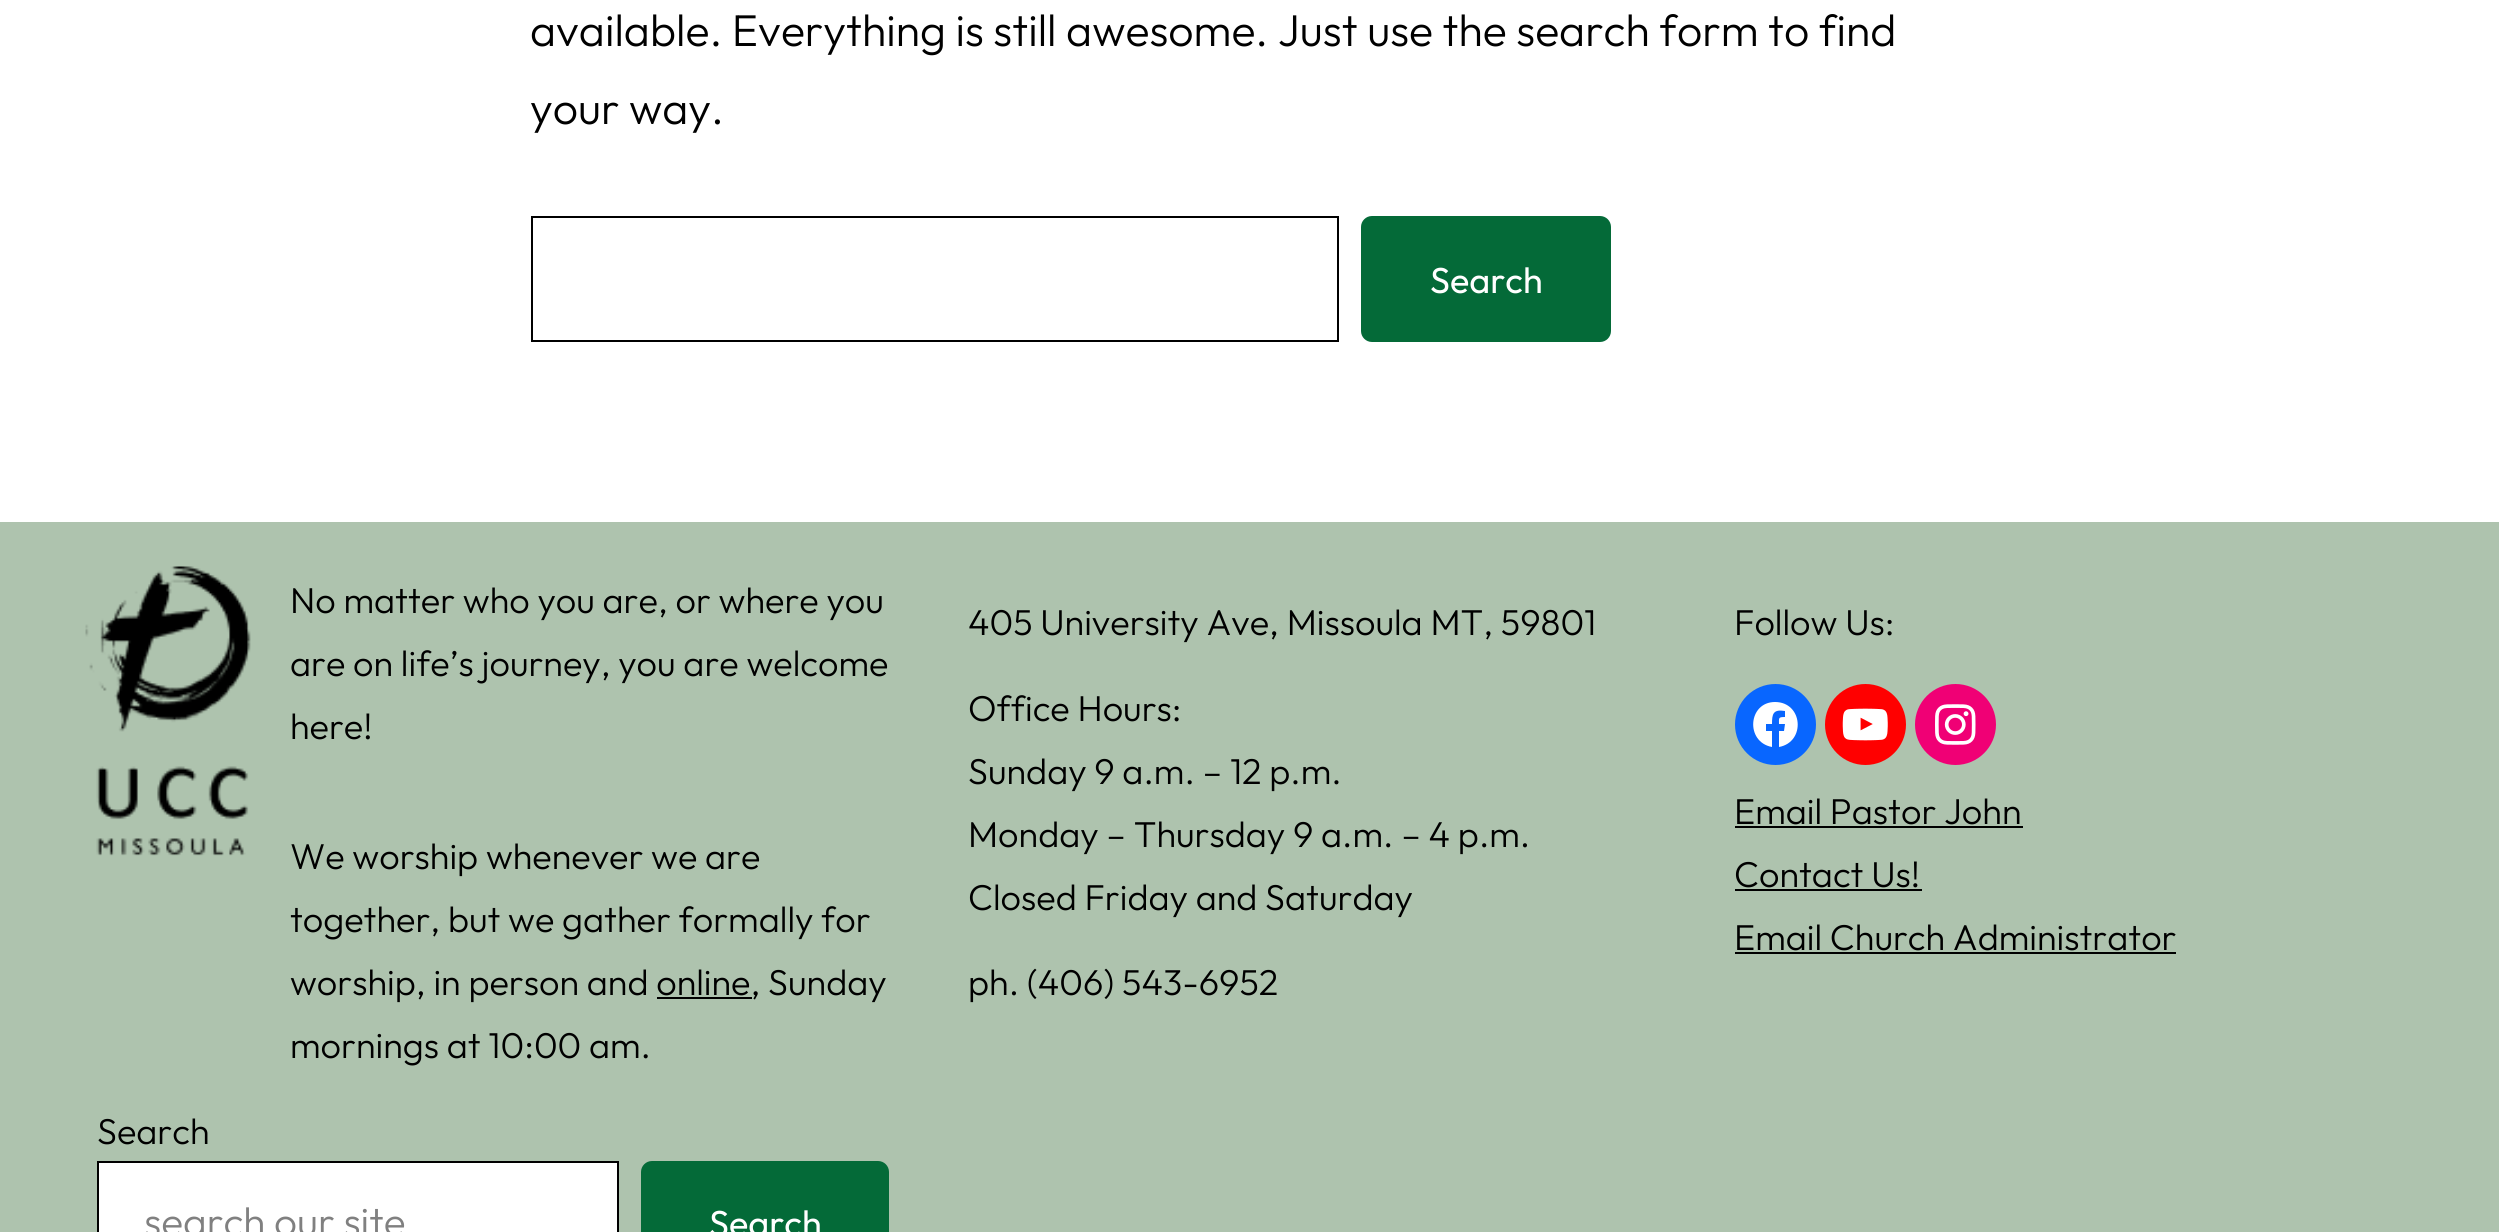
import math
import cairo



def rounded_rect(context, x, y, w, h, r):
    context.new_sub_path()
    for i, (u, v) in enumerate([(x + w - r, y + h - r), (x + r, y + h - r), (x + r, y + r), (x + w - r, y + r)]):
        context.arc(u, v, r, i * math.pi / 2, (i + 1) * math.pi / 2)
    context.close_path()


def draw_image(context, path, x, y, w, h):
    context.save()
    context.set_source_surface(cairo.ImageSurface.create_from_png(path), x, y)
    context.rectangle(x, y, w, h)
    context.fill()
    context.restore()


def draw(context):
    context.set_source_rgb(1, 1, 1)
    context.paint()
    context.rectangle(532, 217, 806, 124)
    context.set_source_rgb(0, 0, 0)
    context.stroke()
    context.set_source_rgb(4 / 255, 106 / 255, 56 / 255)
    rounded_rect(context, 1361, 216, 250, 126, 11)
    context.fill()
    context.set_source_rgb(174 / 255, 195 / 255, 174 / 255)
    context.rectangle(0, 522, 2499, 710)
    context.fill()
    draw_image(context, "images/1.png", 85, 566, 166, 290)
    context.set_source_rgb(0, 0, 0)
    context.rectangle(657, 997, 95, 2)
    context.fill()
    context.set_source_rgb(1, 1, 1)
    context.rectangle(98, 1162, 520, 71)
    context.fill_preserve()
    context.set_source_rgb(0, 0, 0)
    context.stroke()
    context.set_source_rgb(4 / 255, 106 / 255, 56 / 255)
    rounded_rect(context, 641, 1161, 248, 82, 11)
    context.fill()
    context.set_source_rgb(8 / 255, 102 / 255, 1)
    context.arc(1775.5, 724.5, 40.5, 0, 2 * math.pi)
    context.fill()
    context.set_source_rgb(1, 1, 1)
    context.new_path()
    context.move_to(1775, 702)
    context.curve_to(1748, 702, 1745, 742, 1772, 747)
    context.line_to(1772, 731)
    context.line_to(1766, 731)
    context.line_to(1766, 724)
    context.line_to(1772, 724)
    context.curve_to(1772, 714, 1773, 709, 1785, 711)
    context.line_to(1785, 717)
    context.curve_to(1778, 717, 1779, 718, 1779, 724)
    context.line_to(1785, 724)
    context.line_to(1784, 731)
    context.line_to(1779, 731)
    context.line_to(1779, 747)
    context.curve_to(1806, 742, 1803, 702, 1775, 702)
    context.close_path()
    context.fill()
    context.set_source_rgb(1, 0, 0)
    context.arc(1865.5, 724.5, 40.5, 0, 2 * math.pi)
    context.fill()
    draw_image(context, "images/2.png", 1842, 708, 46, 33)
    context.set_source_rgb(240 / 255, 0, 117 / 255)
    context.arc(1955.5, 724.5, 40.5, 0, 2 * math.pi)
    context.fill()
    draw_image(context, "images/3.png", 1935, 704, 41, 41)
    context.set_source_rgb(0, 0, 0)
    context.rectangle(1735, 826, 288, 2)
    context.fill()
    context.rectangle(1735, 889, 187, 2)
    context.fill()
    context.rectangle(1735, 952, 441, 2)
    context.fill()
    context.select_font_face("Outfit Light")
    context.set_font_size(44.55)
    context.move_to(530, 46)
    context.show_text("available. Everything is still awesome. Just use the search form to find")
    context.move_to(530, 124)
    context.show_text("your way.")
    context.select_font_face("Outfit")
    context.set_font_size(36)
    context.set_source_rgb(1, 1, 1)
    context.move_to(1430, 293)
    context.show_text("Search")
    context.select_font_face("Outfit Light")
    context.set_source_rgb(0, 0, 0)
    context.move_to(290, 613)
    context.show_text("No matter who you are, or where you")
    context.move_to(290, 676)
    context.show_text("are on life’s journey, you are welcome")
    context.move_to(290, 739)
    context.show_text("here!")
    context.move_to(290, 869)
    context.show_text("We worship whenever we are")
    context.move_to(290, 932)
    context.show_text("together, but we gather formally for")
    context.move_to(290, 995)
    context.show_text("worship, in person and online, Sunday")
    context.move_to(290, 1058)
    context.show_text("mornings at 10:00 am.")
    context.move_to(97, 1144)
    context.show_text("Search")
    context.set_font_size(40.5)
    context.set_source_rgb(128 / 255, 128 / 255, 128 / 255)
    context.move_to(144, 1236)
    context.show_text("search our site")
    context.select_font_face("Outfit")
    context.set_font_size(36)
    context.set_source_rgb(1, 1, 1)
    context.move_to(709, 1236)
    context.show_text("Search")
    context.select_font_face("Outfit Light")
    context.set_source_rgb(0, 0, 0)
    context.move_to(968, 635)
    context.show_text("405 University Ave, Missoula MT, 59801")
    context.move_to(968, 721)
    context.show_text("Office Hours:")
    context.move_to(968, 784)
    context.show_text("Sunday 9 a.m. – 12 p.m.")
    context.move_to(968, 847)
    context.show_text("Monday – Thursday 9 a.m. – 4 p.m.")
    context.move_to(968, 910)
    context.show_text("Closed Friday and Saturday")
    context.move_to(968, 995)
    context.show_text("ph. (406) 543-6952")
    context.move_to(1734, 635)
    context.show_text("Follow Us:")
    context.move_to(1734, 824)
    context.show_text("Email Pastor John")
    context.move_to(1734, 887)
    context.show_text("Contact Us!")
    context.move_to(1734, 950)
    context.show_text("Email Church Administrator")


surface = cairo.ImageSurface(cairo.Format.RGB24, 2499, 1232)
context = cairo.Context(surface)
options = cairo.FontOptions()
options.set_hint_metrics(cairo.HintMetrics.OFF)
options.set_hint_style(cairo.HintStyle.NONE)
context.set_font_options(options)
context.set_miter_limit(4)
draw(context)
surface.write_to_png("out.png")
